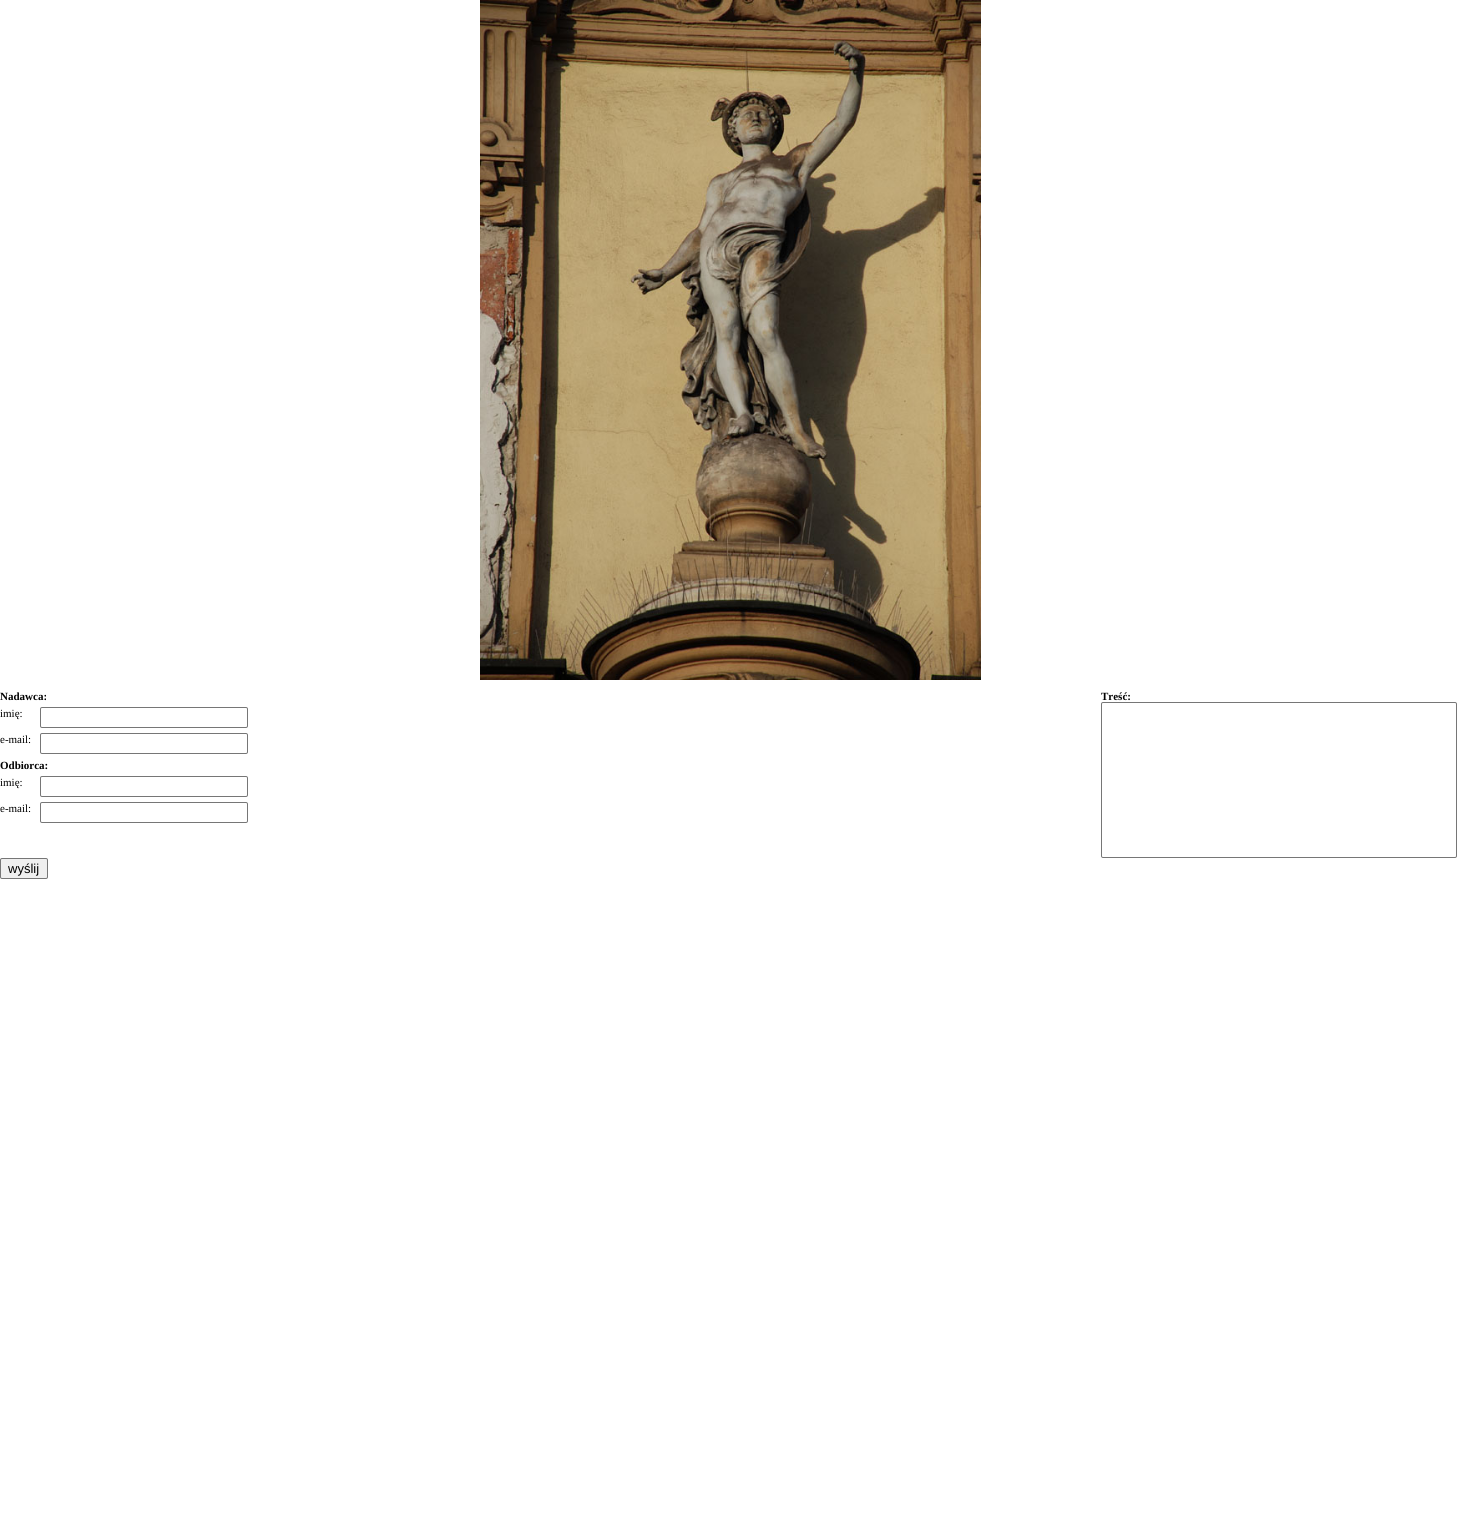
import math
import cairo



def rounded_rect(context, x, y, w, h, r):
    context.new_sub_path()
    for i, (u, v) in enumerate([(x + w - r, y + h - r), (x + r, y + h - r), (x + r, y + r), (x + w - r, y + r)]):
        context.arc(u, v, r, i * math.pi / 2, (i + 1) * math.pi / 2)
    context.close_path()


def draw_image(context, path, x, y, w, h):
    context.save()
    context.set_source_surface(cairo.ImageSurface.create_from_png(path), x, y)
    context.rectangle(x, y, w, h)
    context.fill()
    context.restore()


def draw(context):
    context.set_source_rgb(1, 1, 1)
    context.paint()
    draw_image(context, "images/1.png", 480, 0, 501, 680)
    rounded_rect(context, 40.5, 707.5, 207, 20, 1.5)
    context.set_source_rgb(118 / 255, 118 / 255, 118 / 255)
    context.set_line_width(1)
    context.stroke()
    rounded_rect(context, 40.5, 733.5, 207, 20, 1.5)
    context.stroke()
    rounded_rect(context, 40.5, 776.5, 207, 20, 1.5)
    context.stroke()
    rounded_rect(context, 40.5, 802.5, 207, 20, 1.5)
    context.stroke()
    rounded_rect(context, 1101.5, 702.5, 355, 155, 1.5)
    context.stroke()
    context.set_source_rgb(239 / 255, 239 / 255, 239 / 255)
    rounded_rect(context, 0.5, 858.5, 47, 20, 1.5)
    context.fill_preserve()
    context.set_source_rgb(118 / 255, 118 / 255, 118 / 255)
    context.stroke()
    context.select_font_face("Liberation Serif", cairo.FontSlant.NORMAL, cairo.FontWeight.BOLD)
    context.set_font_size(11)
    context.set_source_rgb(0, 0, 0)
    context.move_to(0, 700)
    context.show_text("Nadawca:")
    context.select_font_face("Liberation Serif")
    context.move_to(0, 717)
    context.show_text("imię:")
    context.move_to(0, 743)
    context.show_text("e-mail:")
    context.select_font_face("Liberation Serif", cairo.FontSlant.NORMAL, cairo.FontWeight.BOLD)
    context.move_to(0, 769)
    context.show_text("Odbiorca:")
    context.select_font_face("Liberation Serif")
    context.move_to(0, 786)
    context.show_text("imię:")
    context.move_to(0, 812)
    context.show_text("e-mail:")
    context.select_font_face("Liberation Serif", cairo.FontSlant.NORMAL, cairo.FontWeight.BOLD)
    context.move_to(1101, 700)
    context.show_text("Treść:")
    context.select_font_face("Liberation Sans")
    context.set_font_size(13)
    context.move_to(8, 873)
    context.show_text("wyślij")


surface = cairo.ImageSurface(cairo.Format.RGB24, 1461, 1538)
context = cairo.Context(surface)
options = cairo.FontOptions()
options.set_hint_metrics(cairo.HintMetrics.OFF)
options.set_hint_style(cairo.HintStyle.NONE)
context.set_font_options(options)
context.set_miter_limit(4)
draw(context)
surface.write_to_png("out.png")
